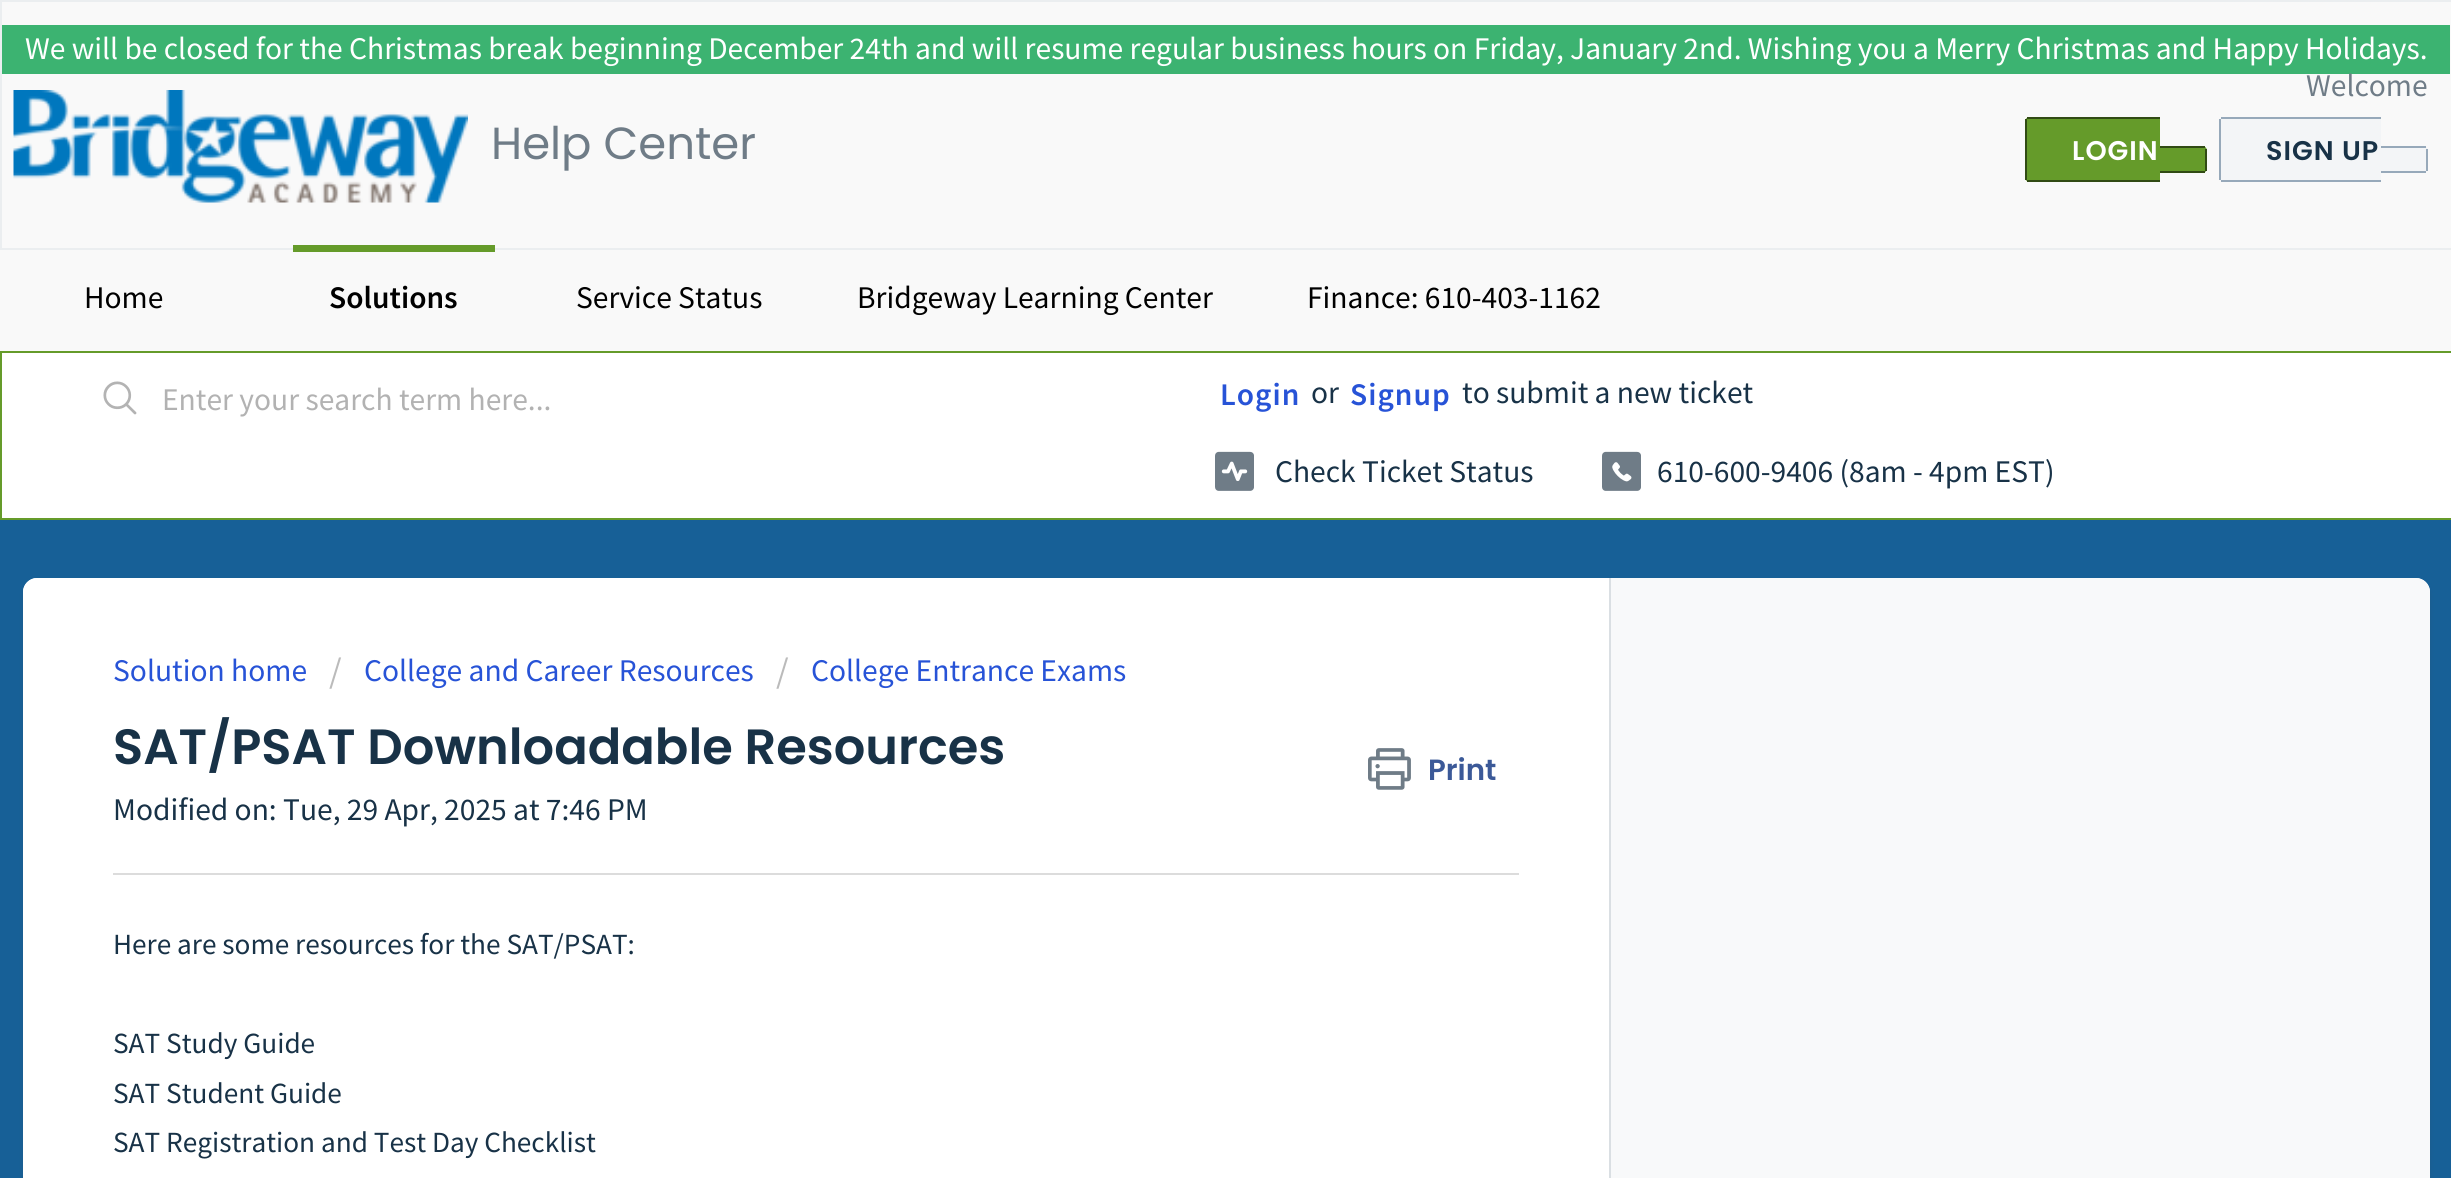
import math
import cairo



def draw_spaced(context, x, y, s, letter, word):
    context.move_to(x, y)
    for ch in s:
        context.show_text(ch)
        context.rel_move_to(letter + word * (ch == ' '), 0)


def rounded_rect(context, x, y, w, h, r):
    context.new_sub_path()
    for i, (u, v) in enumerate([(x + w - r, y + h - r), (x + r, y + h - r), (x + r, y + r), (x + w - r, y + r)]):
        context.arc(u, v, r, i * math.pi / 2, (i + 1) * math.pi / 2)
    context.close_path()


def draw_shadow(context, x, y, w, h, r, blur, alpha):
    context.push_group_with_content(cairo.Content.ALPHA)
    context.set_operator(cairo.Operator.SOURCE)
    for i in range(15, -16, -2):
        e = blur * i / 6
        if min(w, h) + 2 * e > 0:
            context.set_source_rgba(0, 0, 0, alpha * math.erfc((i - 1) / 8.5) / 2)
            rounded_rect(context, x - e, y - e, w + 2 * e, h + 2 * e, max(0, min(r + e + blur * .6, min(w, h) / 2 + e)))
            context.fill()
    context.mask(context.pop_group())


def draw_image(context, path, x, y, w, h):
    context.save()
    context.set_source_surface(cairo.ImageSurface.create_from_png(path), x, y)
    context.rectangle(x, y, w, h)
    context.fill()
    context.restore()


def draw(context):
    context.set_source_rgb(23 / 255, 96 / 255, 151 / 255)
    context.paint()
    context.set_source_rgb(249 / 255, 249 / 255, 249 / 255)
    context.rectangle(1, 1, 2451, 248)
    context.fill_preserve()
    context.set_source_rgb(235 / 255, 238 / 255, 240 / 255)
    context.stroke()
    context.set_source_rgb(60 / 255, 179 / 255, 113 / 255)
    context.rectangle(2, 25, 2448, 49)
    context.fill()
    draw_image(context, "images/1.png", 13, 90, 455, 113)
    context.set_source_rgb(101 / 255, 155 / 255, 42 / 255)
    context.new_path()
    context.move_to(2030, 117)
    context.line_to(2160, 117)
    context.line_to(2160, 182)
    context.line_to(2030, 182)
    context.curve_to(2027, 182, 2025, 180, 2025, 177)
    context.line_to(2025, 122)
    context.curve_to(2025, 119, 2027, 117, 2030, 117)
    context.close_path()
    context.fill()
    context.set_source_rgb(49 / 255, 75 / 255, 20 / 255)
    context.rectangle(2027, 117, 133, 2)
    context.fill()
    context.rectangle(2027, 180, 133, 2)
    context.fill()
    context.rectangle(2025, 119, 2, 61)
    context.fill()
    context.set_source_rgb(101 / 255, 155 / 255, 42 / 255)
    context.new_path()
    context.move_to(2160, 146)
    context.line_to(2202, 146)
    context.curve_to(2205, 146, 2207, 148, 2207, 151)
    context.line_to(2207, 168)
    context.curve_to(2207, 171, 2205, 173, 2202, 173)
    context.line_to(2160, 173)
    context.close_path()
    context.fill()
    context.set_source_rgb(49 / 255, 75 / 255, 20 / 255)
    context.rectangle(2160, 146, 45, 2)
    context.fill()
    context.rectangle(2205, 149, 2, 22)
    context.fill()
    context.rectangle(2160, 171, 45, 2)
    context.fill()
    context.set_source_rgb(243 / 255, 245 / 255, 247 / 255)
    context.new_path()
    context.move_to(2224, 117)
    context.line_to(2381, 117)
    context.line_to(2381, 182)
    context.line_to(2224, 182)
    context.curve_to(2221, 182, 2219, 180, 2219, 177)
    context.line_to(2219, 122)
    context.curve_to(2219, 119, 2221, 117, 2224, 117)
    context.close_path()
    context.fill()
    context.set_source_rgb(151 / 255, 169 / 255, 186 / 255)
    context.rectangle(2221, 117, 160, 2)
    context.fill()
    context.rectangle(2221, 180, 160, 2)
    context.fill()
    context.rectangle(2219, 119, 2, 61)
    context.fill()
    context.set_source_rgb(243 / 255, 245 / 255, 247 / 255)
    context.new_path()
    context.move_to(2381, 146)
    context.line_to(2423, 146)
    context.curve_to(2426, 146, 2428, 148, 2428, 151)
    context.line_to(2428, 168)
    context.curve_to(2428, 171, 2426, 173, 2423, 173)
    context.line_to(2381, 173)
    context.close_path()
    context.fill()
    context.set_source_rgb(151 / 255, 169 / 255, 186 / 255)
    context.rectangle(2381, 146, 45, 2)
    context.fill()
    context.rectangle(2426, 149, 2, 22)
    context.fill()
    context.rectangle(2381, 171, 45, 2)
    context.fill()
    context.set_source_rgb(249 / 255, 249 / 255, 249 / 255)
    context.rectangle(0, 250, 2451, 101)
    context.fill()
    context.set_source_rgb(101 / 255, 155 / 255, 42 / 255)
    context.rectangle(293, 245, 202, 7)
    context.fill()
    context.set_source_rgb(1, 1, 1)
    context.rectangle(1, 352, 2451, 167)
    context.fill_preserve()
    context.set_source_rgb(101 / 255, 155 / 255, 42 / 255)
    context.stroke()
    draw_image(context, "images/2.png", 103, 381, 34, 34)
    draw_image(context, "images/3.png", 1215, 451, 39, 40)
    draw_image(context, "images/4.png", 1602, 451, 39, 40)
    context.set_source_rgb(63 / 255, 63 / 255, 68 / 255)
    draw_shadow(context, 23, 581, 2407, 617, 14, 2, 0.15)
    context.set_source_rgb(248 / 255, 249 / 255, 250 / 255)
    rounded_rect(context, 23, 578, 2407, 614, 14)
    context.fill()
    context.new_path()
    context.move_to(1611, 578)
    context.line_to(2416, 578)
    context.curve_to(2423.5, 578, 2430, 584.5, 2430, 592)
    context.line_to(2430, 609)
    context.curve_to(2430, 616.5, 2423.5, 623, 2416, 623)
    context.line_to(1611, 623)
    context.close_path()
    context.fill()
    context.set_source_rgb(1, 1, 1)
    context.new_path()
    context.move_to(37, 578)
    context.line_to(1611, 578)
    context.line_to(1611, 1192)
    context.line_to(37, 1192)
    context.curve_to(29.5, 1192, 23, 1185.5, 23, 1178)
    context.line_to(23, 592)
    context.curve_to(23, 584.5, 29.5, 578, 37, 578)
    context.close_path()
    context.fill()
    context.set_source_rgb(218 / 255, 223 / 255, 227 / 255)
    context.rectangle(1609, 578, 2, 600)
    context.fill()
    draw_image(context, "images/5.png", 1368, 748, 43, 42)
    context.set_source_rgb(220 / 255, 220 / 255, 220 / 255)
    context.rectangle(113, 873, 1406, 2)
    context.fill()
    context.select_font_face("Source Sans Pro")
    context.set_font_size(31.5)
    context.set_source_rgb(1, 1, 1)
    context.move_to(25, 59)
    context.show_text("We will be closed for the Christmas break beginning December 24th and will resume regular business hours on Friday, January 2nd. Wishing you a Merry Christmas and Happy Holidays.")
    context.select_font_face("Poppins")
    context.set_font_size(45)
    context.set_source_rgb(111 / 255, 124 / 255, 135 / 255)
    context.move_to(491, 159)
    context.show_text("Help Center")
    context.select_font_face("Source Sans Pro")
    context.set_font_size(31.5)
    context.move_to(2306, 96)
    context.show_text("Welcome")
    context.select_font_face("Poppins SemiBold")
    context.set_font_size(27)
    context.set_source_rgb(1, 1, 1)
    draw_spaced(context, 2072, 160, "LOGIN", 1, 0)
    context.set_source_rgb(24 / 255, 50 / 255, 71 / 255)
    draw_spaced(context, 2266, 160, "SIGN UP", 1, 0)
    context.select_font_face("Source Sans Pro")
    context.set_font_size(31.5)
    context.set_source_rgb(0, 0, 0)
    context.move_to(84, 308)
    context.show_text("Home")
    context.select_font_face("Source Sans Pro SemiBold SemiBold")
    context.move_to(329, 308)
    context.show_text("Solutions")
    context.select_font_face("Source Sans Pro")
    context.move_to(576, 308)
    context.show_text("Service Status")
    context.move_to(857, 308)
    context.show_text("Bridgeway Learning Center")
    context.move_to(1307, 308)
    context.show_text("Finance: 610-403-1162")
    context.set_source_rgb(178 / 255, 178 / 255, 178 / 255)
    context.move_to(162, 410)
    context.show_text("Enter your search term here...")
    context.select_font_face("Source Sans Pro SemiBold SemiBold")
    context.set_source_rgb(39 / 255, 83 / 255, 215 / 255)
    draw_spaced(context, 1220, 405, "Login", 1, 0)
    context.select_font_face("Source Sans Pro")
    context.set_source_rgb(24 / 255, 50 / 255, 71 / 255)
    context.move_to(1311, 403)
    context.show_text("or")
    context.select_font_face("Source Sans Pro SemiBold SemiBold")
    context.set_source_rgb(39 / 255, 83 / 255, 215 / 255)
    draw_spaced(context, 1350, 405, "Signup", 1, 0)
    context.select_font_face("Source Sans Pro")
    context.set_source_rgb(24 / 255, 50 / 255, 71 / 255)
    context.move_to(1462, 403)
    context.show_text("to submit a new ticket")
    context.move_to(1275, 482)
    context.show_text("Check Ticket Status")
    context.move_to(1657, 482)
    context.show_text("610-600-9406 (8am - 4pm EST)")
    context.set_source_rgb(39 / 255, 83 / 255, 215 / 255)
    context.move_to(113, 681)
    context.show_text("Solution home")
    context.set_font_size(36)
    context.set_source_rgb(187 / 255, 187 / 255, 187 / 255)
    context.move_to(329, 683)
    context.show_text("/")
    context.set_font_size(31.5)
    context.set_source_rgb(39 / 255, 83 / 255, 215 / 255)
    context.move_to(364, 681)
    context.show_text("College and Career Resources")
    context.set_font_size(36)
    context.set_source_rgb(187 / 255, 187 / 255, 187 / 255)
    context.move_to(776, 683)
    context.show_text("/")
    context.set_font_size(31.5)
    context.set_source_rgb(39 / 255, 83 / 255, 215 / 255)
    context.move_to(811, 681)
    context.show_text("College Entrance Exams")
    context.select_font_face("Poppins SemiBold")
    context.set_font_size(49.5)
    context.set_source_rgb(24 / 255, 50 / 255, 71 / 255)
    context.move_to(113, 764)
    context.show_text("SAT/PSAT Downloadable Resources")
    context.set_font_size(29.25)
    context.set_source_rgb(59 / 255, 89 / 255, 152 / 255)
    context.move_to(1428, 780)
    context.show_text("Print")
    context.select_font_face("Source Sans Pro")
    context.set_font_size(31.5)
    context.set_source_rgb(24 / 255, 50 / 255, 71 / 255)
    context.move_to(113, 820)
    context.show_text("Modified on: Tue, 29 Apr, 2025 at 7:46 PM")
    context.set_font_size(29.25)
    context.move_to(113, 954)
    context.show_text("Here are some resources for the SAT/PSAT:")
    context.move_to(113, 1053)
    context.show_text("SAT Study Guide")
    context.move_to(113, 1103)
    context.show_text("SAT Student Guide")
    context.move_to(113, 1152)
    context.show_text("SAT Registration and Test Day Checklist")


surface = cairo.ImageSurface(cairo.Format.RGB24, 2451, 1178)
context = cairo.Context(surface)
options = cairo.FontOptions()
options.set_hint_metrics(cairo.HintMetrics.OFF)
options.set_hint_style(cairo.HintStyle.NONE)
context.set_font_options(options)
context.set_miter_limit(4)
draw(context)
surface.write_to_png("out.png")
